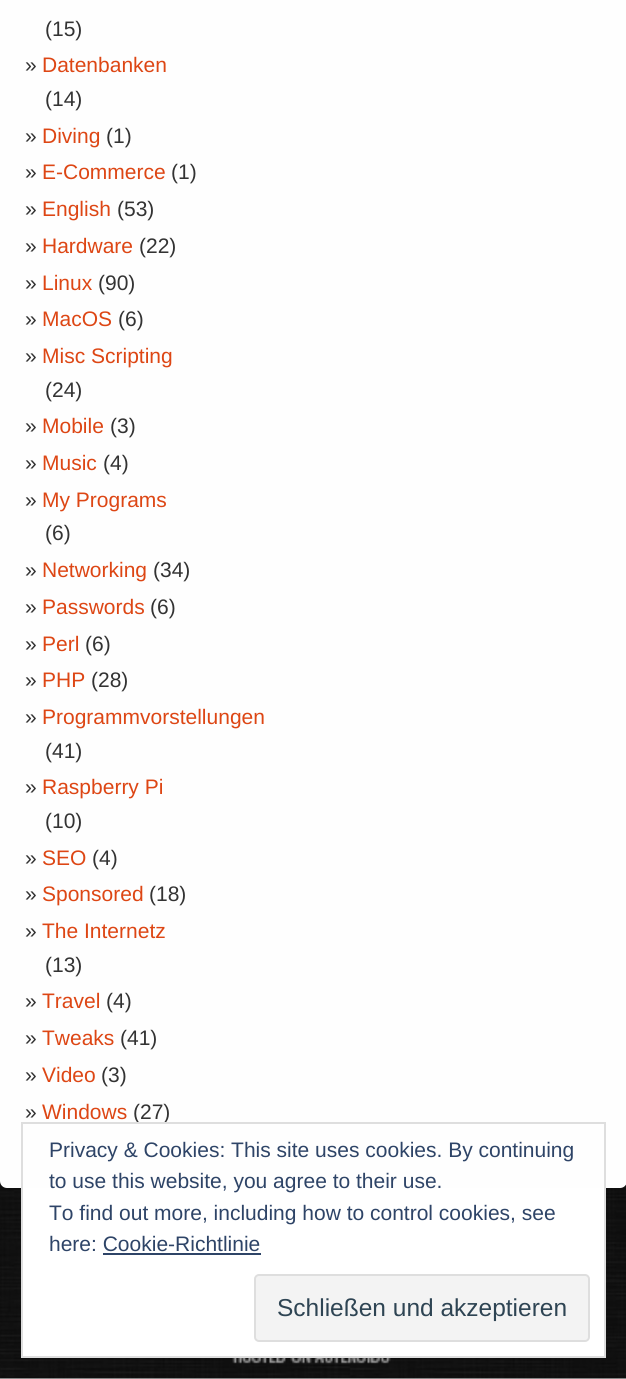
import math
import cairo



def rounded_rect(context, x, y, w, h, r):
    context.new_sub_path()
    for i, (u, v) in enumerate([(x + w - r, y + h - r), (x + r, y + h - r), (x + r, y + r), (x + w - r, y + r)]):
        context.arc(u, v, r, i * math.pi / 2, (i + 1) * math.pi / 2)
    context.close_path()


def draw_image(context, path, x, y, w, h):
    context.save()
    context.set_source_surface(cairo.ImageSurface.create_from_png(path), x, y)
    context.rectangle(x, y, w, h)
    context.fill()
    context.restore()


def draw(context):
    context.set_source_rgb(1, 1, 1)
    context.paint()
    draw_image(context, "images/1.png", 0, 1181, 626, 198)
    context.set_source_rgb(254 / 255, 254 / 255, 254 / 255)
    rounded_rect(context, 0, -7, 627, 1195, 7)
    context.fill()
    context.set_source_rgb(1, 1, 1)
    context.rectangle(23, 1188, 581, 168)
    context.fill()
    draw_image(context, "images/2.png", 232, 1358, 159, 6)
    context.select_font_face("Liberation Sans")
    context.set_font_size(21)
    context.set_source_rgb(51 / 255, 51 / 255, 51 / 255)
    context.move_to(45, 36)
    context.show_text("(15)")
    context.move_to(25, 72)
    context.show_text("»")
    context.set_source_rgb(221 / 255, 70 / 255, 20 / 255)
    context.move_to(42, 72)
    context.show_text("Datenbanken")
    context.set_source_rgb(51 / 255, 51 / 255, 51 / 255)
    context.move_to(45, 106)
    context.show_text("(14)")
    context.move_to(25, 143)
    context.show_text("»")
    context.set_source_rgb(221 / 255, 70 / 255, 20 / 255)
    context.move_to(42, 143)
    context.show_text("Diving")
    context.set_source_rgb(51 / 255, 51 / 255, 51 / 255)
    context.move_to(106, 143)
    context.show_text("(1)")
    context.move_to(25, 179)
    context.show_text("»")
    context.set_source_rgb(221 / 255, 70 / 255, 20 / 255)
    context.move_to(42, 179)
    context.show_text("E-Commerce")
    context.set_source_rgb(51 / 255, 51 / 255, 51 / 255)
    context.move_to(171, 179)
    context.show_text("(1)")
    context.move_to(25, 216)
    context.show_text("»")
    context.set_source_rgb(221 / 255, 70 / 255, 20 / 255)
    context.move_to(42, 216)
    context.show_text("English")
    context.set_source_rgb(51 / 255, 51 / 255, 51 / 255)
    context.move_to(117, 216)
    context.show_text("(53)")
    context.move_to(25, 253)
    context.show_text("»")
    context.set_source_rgb(221 / 255, 70 / 255, 20 / 255)
    context.move_to(42, 253)
    context.show_text("Hardware")
    context.set_source_rgb(51 / 255, 51 / 255, 51 / 255)
    context.move_to(139, 253)
    context.show_text("(22)")
    context.move_to(25, 290)
    context.show_text("»")
    context.set_source_rgb(221 / 255, 70 / 255, 20 / 255)
    context.move_to(42, 290)
    context.show_text("Linux")
    context.set_source_rgb(51 / 255, 51 / 255, 51 / 255)
    context.move_to(98, 290)
    context.show_text("(90)")
    context.move_to(25, 326)
    context.show_text("»")
    context.set_source_rgb(221 / 255, 70 / 255, 20 / 255)
    context.move_to(42, 326)
    context.show_text("MacOS")
    context.set_source_rgb(51 / 255, 51 / 255, 51 / 255)
    context.move_to(118, 326)
    context.show_text("(6)")
    context.move_to(25, 363)
    context.show_text("»")
    context.set_source_rgb(221 / 255, 70 / 255, 20 / 255)
    context.move_to(42, 363)
    context.show_text("Misc Scripting")
    context.set_source_rgb(51 / 255, 51 / 255, 51 / 255)
    context.move_to(45, 397)
    context.show_text("(24)")
    context.move_to(25, 433)
    context.show_text("»")
    context.set_source_rgb(221 / 255, 70 / 255, 20 / 255)
    context.move_to(42, 433)
    context.show_text("Mobile")
    context.set_source_rgb(51 / 255, 51 / 255, 51 / 255)
    context.move_to(110, 433)
    context.show_text("(3)")
    context.move_to(25, 470)
    context.show_text("»")
    context.set_source_rgb(221 / 255, 70 / 255, 20 / 255)
    context.move_to(42, 470)
    context.show_text("Music")
    context.set_source_rgb(51 / 255, 51 / 255, 51 / 255)
    context.move_to(103, 470)
    context.show_text("(4)")
    context.move_to(25, 507)
    context.show_text("»")
    context.set_source_rgb(221 / 255, 70 / 255, 20 / 255)
    context.move_to(42, 507)
    context.show_text("My Programs")
    context.set_source_rgb(51 / 255, 51 / 255, 51 / 255)
    context.move_to(45, 540)
    context.show_text("(6)")
    context.move_to(25, 577)
    context.show_text("»")
    context.set_source_rgb(221 / 255, 70 / 255, 20 / 255)
    context.move_to(42, 577)
    context.show_text("Networking")
    context.set_source_rgb(51 / 255, 51 / 255, 51 / 255)
    context.move_to(153, 577)
    context.show_text("(34)")
    context.move_to(25, 614)
    context.show_text("»")
    context.set_source_rgb(221 / 255, 70 / 255, 20 / 255)
    context.move_to(42, 614)
    context.show_text("Passwords")
    context.set_source_rgb(51 / 255, 51 / 255, 51 / 255)
    context.move_to(150, 614)
    context.show_text("(6)")
    context.move_to(25, 651)
    context.show_text("»")
    context.set_source_rgb(221 / 255, 70 / 255, 20 / 255)
    context.move_to(42, 651)
    context.show_text("Perl")
    context.set_source_rgb(51 / 255, 51 / 255, 51 / 255)
    context.move_to(85, 651)
    context.show_text("(6)")
    context.move_to(25, 687)
    context.show_text("»")
    context.set_source_rgb(221 / 255, 70 / 255, 20 / 255)
    context.move_to(42, 687)
    context.show_text("PHP")
    context.set_source_rgb(51 / 255, 51 / 255, 51 / 255)
    context.move_to(91, 687)
    context.show_text("(28)")
    context.move_to(25, 724)
    context.show_text("»")
    context.set_source_rgb(221 / 255, 70 / 255, 20 / 255)
    context.move_to(42, 724)
    context.show_text("Programmvorstellungen")
    context.set_source_rgb(51 / 255, 51 / 255, 51 / 255)
    context.move_to(45, 758)
    context.show_text("(41)")
    context.move_to(25, 794)
    context.show_text("»")
    context.set_source_rgb(221 / 255, 70 / 255, 20 / 255)
    context.move_to(42, 794)
    context.show_text("Raspberry Pi")
    context.set_source_rgb(51 / 255, 51 / 255, 51 / 255)
    context.move_to(45, 828)
    context.show_text("(10)")
    context.move_to(25, 865)
    context.show_text("»")
    context.set_source_rgb(221 / 255, 70 / 255, 20 / 255)
    context.move_to(42, 865)
    context.show_text("SEO")
    context.set_source_rgb(51 / 255, 51 / 255, 51 / 255)
    context.move_to(92, 865)
    context.show_text("(4)")
    context.move_to(25, 901)
    context.show_text("»")
    context.set_source_rgb(221 / 255, 70 / 255, 20 / 255)
    context.move_to(42, 901)
    context.show_text("Sponsored")
    context.set_source_rgb(51 / 255, 51 / 255, 51 / 255)
    context.move_to(149, 901)
    context.show_text("(18)")
    context.move_to(25, 938)
    context.show_text("»")
    context.set_source_rgb(221 / 255, 70 / 255, 20 / 255)
    context.move_to(42, 938)
    context.show_text("The Internetz")
    context.set_source_rgb(51 / 255, 51 / 255, 51 / 255)
    context.move_to(45, 972)
    context.show_text("(13)")
    context.move_to(25, 1008)
    context.show_text("»")
    context.set_source_rgb(221 / 255, 70 / 255, 20 / 255)
    context.move_to(42, 1008)
    context.show_text("Travel")
    context.set_source_rgb(51 / 255, 51 / 255, 51 / 255)
    context.move_to(106, 1008)
    context.show_text("(4)")
    context.move_to(25, 1045)
    context.show_text("»")
    context.set_source_rgb(221 / 255, 70 / 255, 20 / 255)
    context.move_to(42, 1045)
    context.show_text("Tweaks")
    context.set_source_rgb(51 / 255, 51 / 255, 51 / 255)
    context.move_to(120, 1045)
    context.show_text("(41)")
    context.move_to(25, 1082)
    context.show_text("»")
    context.set_source_rgb(221 / 255, 70 / 255, 20 / 255)
    context.move_to(42, 1082)
    context.show_text("Video")
    context.set_source_rgb(51 / 255, 51 / 255, 51 / 255)
    context.move_to(101, 1082)
    context.show_text("(3)")
    context.move_to(25, 1119)
    context.show_text("»")
    context.set_source_rgb(221 / 255, 70 / 255, 20 / 255)
    context.move_to(42, 1119)
    context.show_text("Windows")
    context.set_source_rgb(51 / 255, 51 / 255, 51 / 255)
    context.move_to(133, 1119)
    context.show_text("(27)")
    context.rectangle(22, 1123, 583, 234)
    context.set_source_rgb(222 / 255, 222 / 255, 222 / 255)
    context.stroke()
    context.set_source_rgb(46 / 255, 68 / 255, 103 / 255)
    context.move_to(49, 1157)
    context.show_text("Privacy & Cookies: This site uses cookies. By continuing")
    context.move_to(49, 1188)
    context.show_text("to use this website, you agree to their use.")
    context.move_to(49, 1220)
    context.show_text("To find out more, including how to control cookies, see")
    context.move_to(49, 1251)
    context.show_text("here: Cookie-Richtlinie")
    context.rectangle(103, 1253, 158, 2)
    context.fill()
    context.set_source_rgb(243 / 255, 243 / 255, 243 / 255)
    rounded_rect(context, 255, 1275, 334, 66, 4)
    context.fill_preserve()
    context.set_source_rgb(222 / 255, 222 / 255, 222 / 255)
    context.stroke()
    context.set_font_size(24.5)
    context.set_source_rgb(46 / 255, 68 / 255, 83 / 255)
    context.move_to(277, 1316)
    context.show_text("Schließen und akzeptieren")


surface = cairo.ImageSurface(cairo.Format.RGB24, 626, 1379)
context = cairo.Context(surface)
options = cairo.FontOptions()
options.set_hint_metrics(cairo.HintMetrics.OFF)
options.set_hint_style(cairo.HintStyle.NONE)
context.set_font_options(options)
context.set_miter_limit(4)
draw(context)
surface.write_to_png("out.png")
